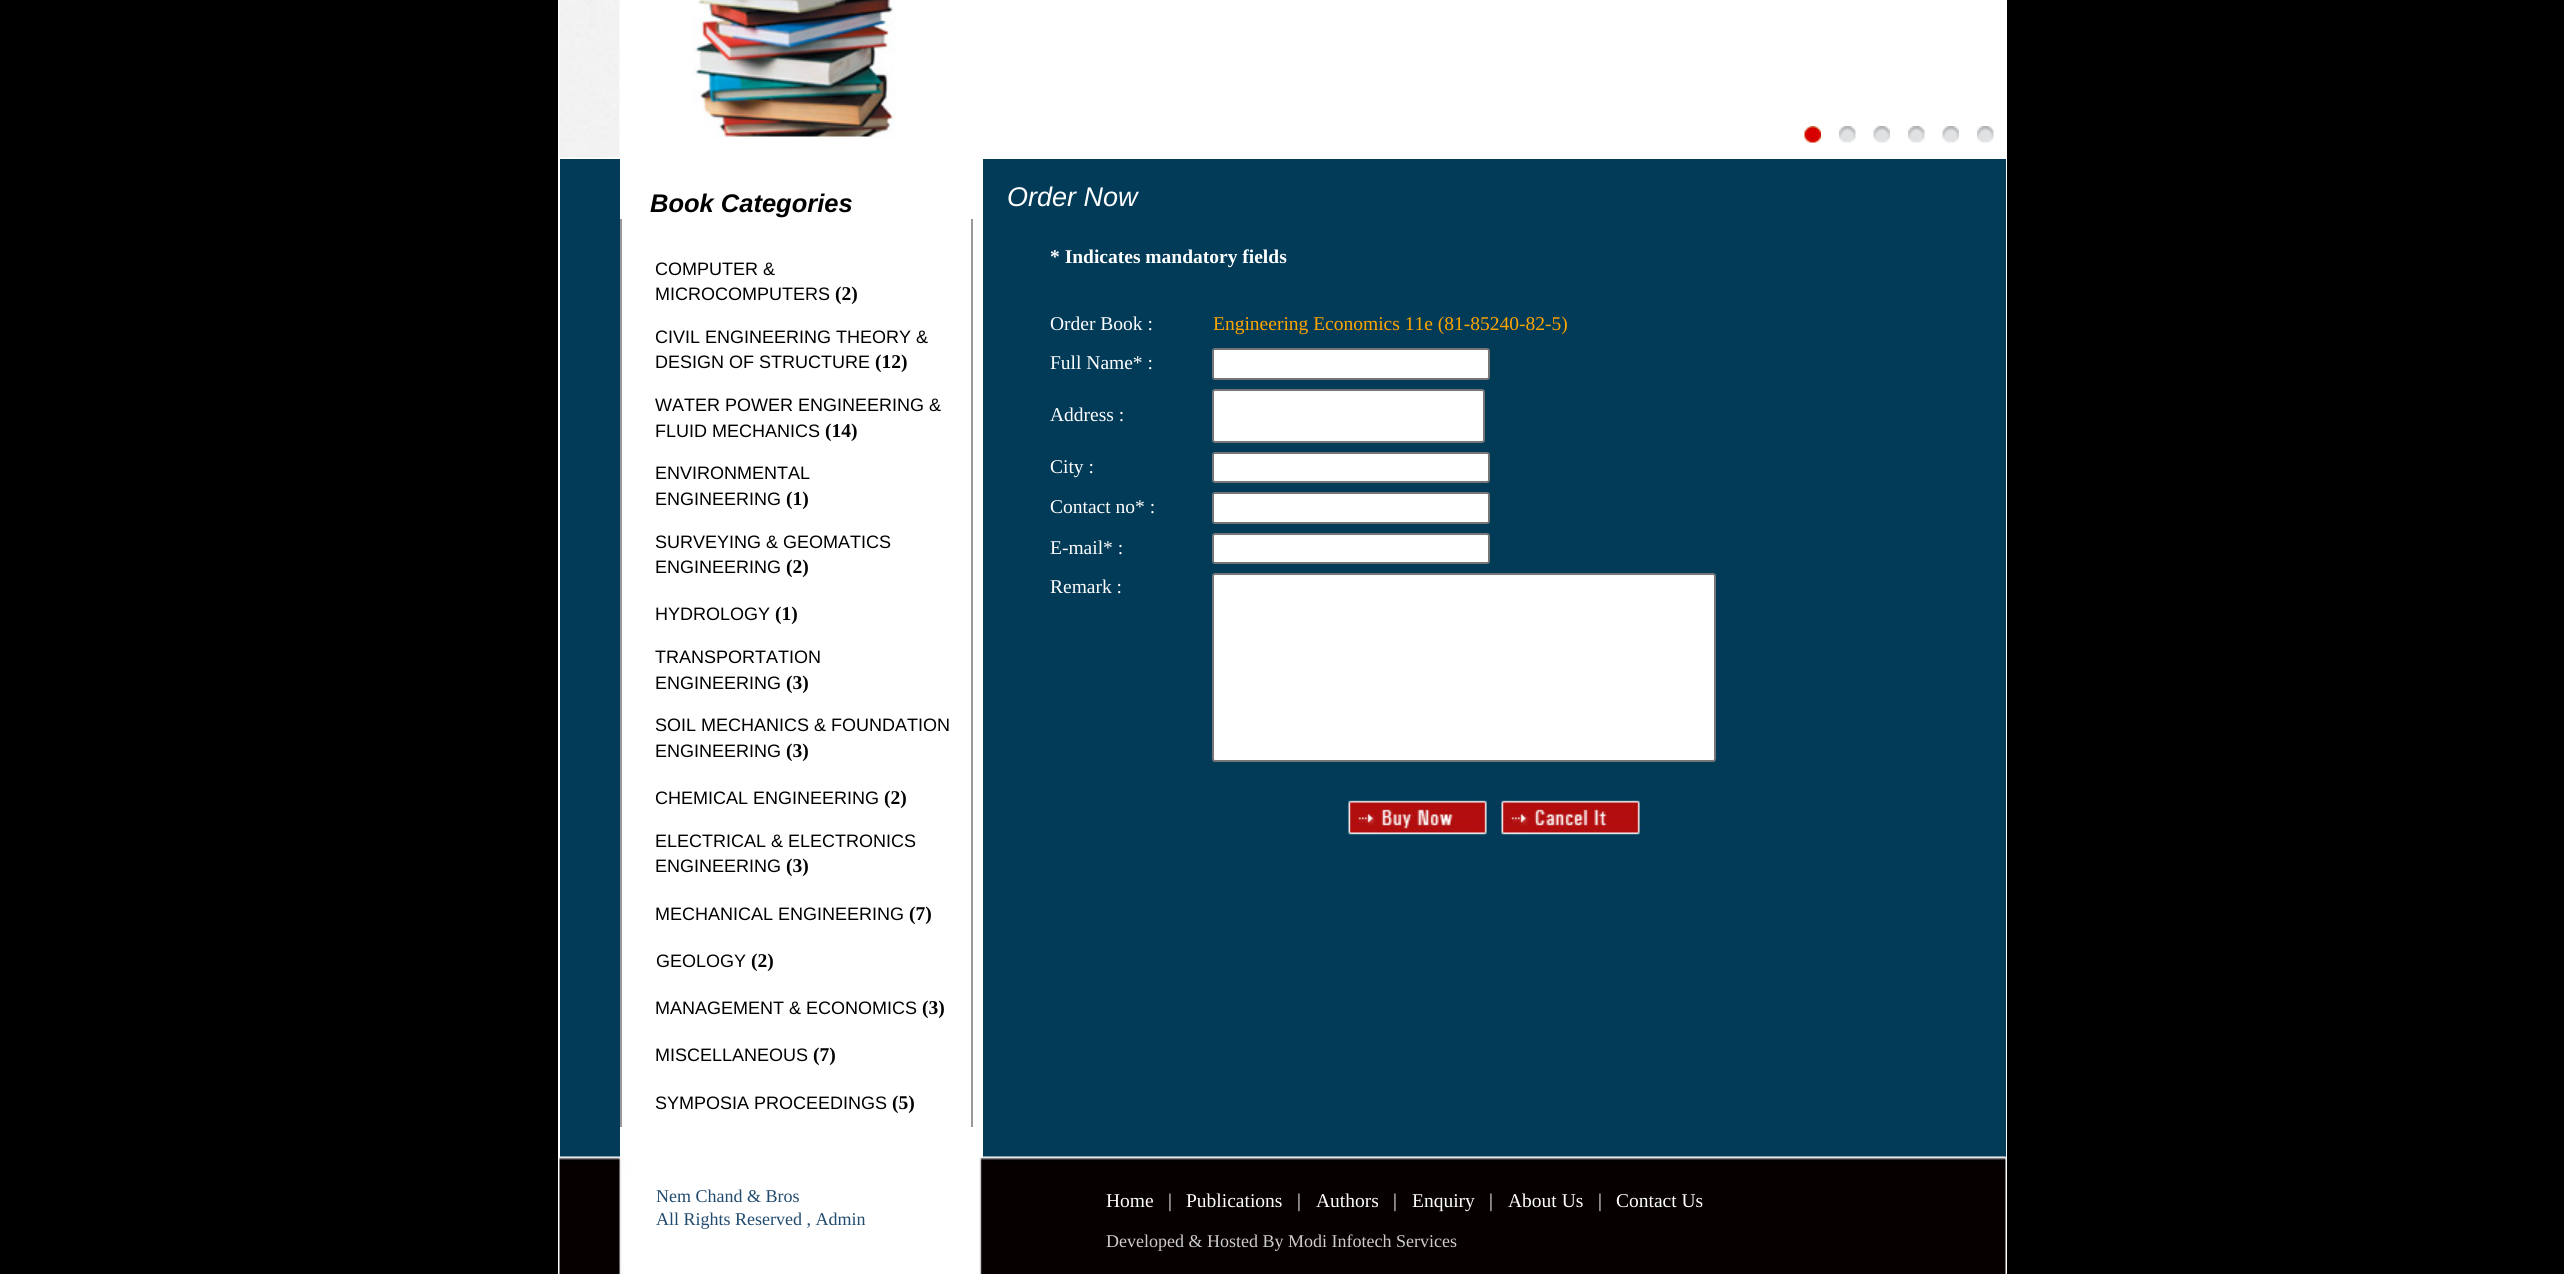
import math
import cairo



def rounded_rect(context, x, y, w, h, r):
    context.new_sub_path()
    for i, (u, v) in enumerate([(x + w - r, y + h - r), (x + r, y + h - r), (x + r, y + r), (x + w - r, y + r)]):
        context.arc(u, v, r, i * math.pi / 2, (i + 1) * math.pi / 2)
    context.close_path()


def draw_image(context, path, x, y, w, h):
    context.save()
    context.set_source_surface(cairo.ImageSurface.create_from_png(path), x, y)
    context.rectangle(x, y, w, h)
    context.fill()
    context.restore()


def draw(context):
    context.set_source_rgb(0, 0, 0)
    context.paint()
    context.set_source_rgb(1, 1, 1)
    context.rectangle(558, 0, 1449, 1274)
    context.fill()
    draw_image(context, "images/1.png", 559, 0, 61, 158)
    draw_image(context, "images/2.png", 692, 0, 204, 138)
    draw_image(context, "images/3.png", 1804, 126, 17, 17)
    draw_image(context, "images/4.png", 1839, 126, 17, 17)
    draw_image(context, "images/5.png", 1873, 126, 17, 17)
    draw_image(context, "images/4.png", 1908, 126, 17, 17)
    draw_image(context, "images/5.png", 1942, 126, 17, 17)
    draw_image(context, "images/4.png", 1977, 126, 17, 17)
    context.set_source_rgb(2 / 255, 59 / 255, 88 / 255)
    context.rectangle(560, 159, 60, 998)
    context.fill()
    context.set_source_rgb(153 / 255, 153 / 255, 153 / 255)
    context.rectangle(971, 219, 2, 908)
    context.fill()
    context.rectangle(620, 219, 2, 908)
    context.fill()
    context.set_source_rgb(2 / 255, 59 / 255, 88 / 255)
    context.rectangle(983, 159, 1023, 998)
    context.fill()
    context.set_source_rgb(1, 1, 1)
    rounded_rect(context, 1213, 349, 276, 30, 2)
    context.fill_preserve()
    context.set_source_rgb(118 / 255, 118 / 255, 118 / 255)
    context.stroke()
    context.set_source_rgb(1, 1, 1)
    rounded_rect(context, 1213, 390, 271, 52, 2)
    context.fill_preserve()
    context.set_source_rgb(118 / 255, 118 / 255, 118 / 255)
    context.stroke()
    context.set_source_rgb(1, 1, 1)
    rounded_rect(context, 1213, 453, 276, 29, 2)
    context.fill_preserve()
    context.set_source_rgb(118 / 255, 118 / 255, 118 / 255)
    context.stroke()
    context.set_source_rgb(1, 1, 1)
    rounded_rect(context, 1213, 493, 276, 30, 2)
    context.fill_preserve()
    context.set_source_rgb(118 / 255, 118 / 255, 118 / 255)
    context.stroke()
    context.set_source_rgb(1, 1, 1)
    rounded_rect(context, 1213, 534, 276, 29, 2)
    context.fill_preserve()
    context.set_source_rgb(118 / 255, 118 / 255, 118 / 255)
    context.stroke()
    context.set_source_rgb(1, 1, 1)
    rounded_rect(context, 1213, 574, 502, 187, 2)
    context.fill_preserve()
    context.set_source_rgb(118 / 255, 118 / 255, 118 / 255)
    context.stroke()
    draw_image(context, "images/6.png", 1345, 798, 145, 37)
    draw_image(context, "images/7.png", 1498, 798, 145, 37)
    draw_image(context, "images/8.png", 559, 1156, 1447, 118)
    context.select_font_face("Liberation Sans", cairo.FontSlant.ITALIC, cairo.FontWeight.BOLD)
    context.set_font_size(25.5)
    context.set_source_rgb(0, 0, 0)
    context.move_to(650, 212)
    context.show_text("Book Categories")
    context.select_font_face("Liberation Sans")
    context.set_font_size(18)
    context.move_to(655, 275)
    context.show_text("COMPUTER &")
    context.move_to(655, 300)
    context.show_text("MICROCOMPUTERS")
    context.select_font_face("Liberation Serif", cairo.FontSlant.NORMAL, cairo.FontWeight.BOLD)
    context.set_font_size(19.5)
    context.move_to(835, 300)
    context.show_text("(2)")
    context.select_font_face("Liberation Sans")
    context.set_font_size(18)
    context.move_to(655, 343)
    context.show_text("CIVIL ENGINEERING THEORY &")
    context.move_to(655, 368)
    context.show_text("DESIGN OF STRUCTURE")
    context.select_font_face("Liberation Serif", cairo.FontSlant.NORMAL, cairo.FontWeight.BOLD)
    context.set_font_size(19.5)
    context.move_to(875, 368)
    context.show_text("(12)")
    context.select_font_face("Liberation Sans")
    context.set_font_size(18)
    context.move_to(655, 411)
    context.show_text("WATER POWER ENGINEERING &")
    context.move_to(655, 437)
    context.show_text("FLUID MECHANICS")
    context.select_font_face("Liberation Serif", cairo.FontSlant.NORMAL, cairo.FontWeight.BOLD)
    context.set_font_size(19.5)
    context.move_to(825, 437)
    context.show_text("(14)")
    context.select_font_face("Liberation Sans")
    context.set_font_size(18)
    context.move_to(655, 479)
    context.show_text("ENVIRONMENTAL")
    context.move_to(655, 505)
    context.show_text("ENGINEERING")
    context.select_font_face("Liberation Serif", cairo.FontSlant.NORMAL, cairo.FontWeight.BOLD)
    context.set_font_size(19.5)
    context.move_to(786, 505)
    context.show_text("(1)")
    context.select_font_face("Liberation Sans")
    context.set_font_size(18)
    context.move_to(655, 548)
    context.show_text("SURVEYING & GEOMATICS")
    context.move_to(655, 573)
    context.show_text("ENGINEERING")
    context.select_font_face("Liberation Serif", cairo.FontSlant.NORMAL, cairo.FontWeight.BOLD)
    context.set_font_size(19.5)
    context.move_to(786, 573)
    context.show_text("(2)")
    context.select_font_face("Liberation Sans")
    context.set_font_size(18)
    context.move_to(655, 620)
    context.show_text("HYDROLOGY")
    context.select_font_face("Liberation Serif", cairo.FontSlant.NORMAL, cairo.FontWeight.BOLD)
    context.set_font_size(19.5)
    context.move_to(775, 620)
    context.show_text("(1)")
    context.select_font_face("Liberation Sans")
    context.set_font_size(18)
    context.move_to(655, 663)
    context.show_text("TRANSPORTATION")
    context.move_to(655, 689)
    context.show_text("ENGINEERING")
    context.select_font_face("Liberation Serif", cairo.FontSlant.NORMAL, cairo.FontWeight.BOLD)
    context.set_font_size(19.5)
    context.move_to(786, 689)
    context.show_text("(3)")
    context.select_font_face("Liberation Sans")
    context.set_font_size(18)
    context.move_to(655, 731)
    context.show_text("SOIL MECHANICS & FOUNDATION")
    context.move_to(655, 757)
    context.show_text("ENGINEERING")
    context.select_font_face("Liberation Serif", cairo.FontSlant.NORMAL, cairo.FontWeight.BOLD)
    context.set_font_size(19.5)
    context.move_to(786, 757)
    context.show_text("(3)")
    context.select_font_face("Liberation Sans")
    context.set_font_size(18)
    context.move_to(655, 804)
    context.show_text("CHEMICAL ENGINEERING")
    context.select_font_face("Liberation Serif", cairo.FontSlant.NORMAL, cairo.FontWeight.BOLD)
    context.set_font_size(19.5)
    context.move_to(884, 804)
    context.show_text("(2)")
    context.select_font_face("Liberation Sans")
    context.set_font_size(18)
    context.move_to(655, 847)
    context.show_text("ELECTRICAL & ELECTRONICS")
    context.move_to(655, 872)
    context.show_text("ENGINEERING")
    context.select_font_face("Liberation Serif", cairo.FontSlant.NORMAL, cairo.FontWeight.BOLD)
    context.set_font_size(19.5)
    context.move_to(786, 872)
    context.show_text("(3)")
    context.select_font_face("Liberation Sans")
    context.set_font_size(18)
    context.move_to(655, 920)
    context.show_text("MECHANICAL ENGINEERING")
    context.select_font_face("Liberation Serif", cairo.FontSlant.NORMAL, cairo.FontWeight.BOLD)
    context.set_font_size(19.5)
    context.move_to(909, 920)
    context.show_text("(7)")
    context.select_font_face("Liberation Sans")
    context.set_font_size(18)
    context.move_to(656, 967)
    context.show_text("GEOLOGY")
    context.select_font_face("Liberation Serif", cairo.FontSlant.NORMAL, cairo.FontWeight.BOLD)
    context.set_font_size(19.5)
    context.move_to(751, 967)
    context.show_text("(2)")
    context.select_font_face("Liberation Sans")
    context.set_font_size(18)
    context.move_to(655, 1014)
    context.show_text("MANAGEMENT & ECONOMICS")
    context.select_font_face("Liberation Serif", cairo.FontSlant.NORMAL, cairo.FontWeight.BOLD)
    context.set_font_size(19.5)
    context.move_to(922, 1014)
    context.show_text("(3)")
    context.select_font_face("Liberation Sans")
    context.set_font_size(18)
    context.move_to(655, 1061)
    context.show_text("MISCELLANEOUS")
    context.select_font_face("Liberation Serif", cairo.FontSlant.NORMAL, cairo.FontWeight.BOLD)
    context.set_font_size(19.5)
    context.move_to(813, 1061)
    context.show_text("(7)")
    context.select_font_face("Liberation Sans")
    context.set_font_size(18)
    context.move_to(655, 1109)
    context.show_text("SYMPOSIA PROCEEDINGS")
    context.select_font_face("Liberation Serif", cairo.FontSlant.NORMAL, cairo.FontWeight.BOLD)
    context.set_font_size(19.5)
    context.move_to(892, 1109)
    context.show_text("(5)")
    context.select_font_face("Liberation Sans", cairo.FontSlant.ITALIC)
    context.set_font_size(27)
    context.set_source_rgb(1, 1, 1)
    context.move_to(1007, 206)
    context.show_text("Order Now")
    context.select_font_face("Liberation Serif", cairo.FontSlant.NORMAL, cairo.FontWeight.BOLD)
    context.set_font_size(19.5)
    context.move_to(1050, 263)
    context.show_text("* Indicates mandatory fields")
    context.select_font_face("Liberation Serif")
    context.move_to(1050, 330)
    context.show_text("Order Book :")
    context.set_source_rgb(1, 165 / 255, 0)
    context.move_to(1213, 330)
    context.show_text("Engineering Economics 11e (81-85240-82-5)")
    context.set_source_rgb(1, 1, 1)
    context.move_to(1050, 369)
    context.show_text("Full Name* :")
    context.move_to(1050, 421)
    context.show_text("Address :")
    context.move_to(1050, 473)
    context.show_text("City :")
    context.move_to(1050, 513)
    context.show_text("Contact no* :")
    context.move_to(1050, 554)
    context.show_text("E-mail* :")
    context.move_to(1050, 593)
    context.show_text("Remark :")
    context.set_font_size(18)
    context.set_source_rgb(32 / 255, 74 / 255, 110 / 255)
    context.move_to(656, 1202)
    context.show_text("Nem Chand & Bros")
    context.move_to(656, 1225)
    context.show_text("All Rights Reserved , Admin")
    context.set_font_size(19.5)
    context.set_source_rgb(1, 1, 1)
    context.move_to(1106, 1207)
    context.show_text("Home")
    context.move_to(1168, 1207)
    context.show_text("|")
    context.move_to(1186, 1207)
    context.show_text("Publications")
    context.move_to(1297, 1207)
    context.show_text("|")
    context.move_to(1316, 1207)
    context.show_text("Authors")
    context.move_to(1393, 1207)
    context.show_text("|")
    context.move_to(1412, 1207)
    context.show_text("Enquiry")
    context.move_to(1489, 1207)
    context.show_text("|")
    context.move_to(1508, 1207)
    context.show_text("About Us")
    context.move_to(1598, 1207)
    context.show_text("|")
    context.move_to(1616, 1207)
    context.show_text("Contact Us")
    context.set_font_size(18)
    context.set_source_rgb(205 / 255, 205 / 255, 205 / 255)
    context.move_to(1106, 1247)
    context.show_text("Developed & Hosted By Modi Infotech Services")


surface = cairo.ImageSurface(cairo.Format.RGB24, 2564, 1274)
context = cairo.Context(surface)
options = cairo.FontOptions()
options.set_hint_metrics(cairo.HintMetrics.OFF)
options.set_hint_style(cairo.HintStyle.NONE)
context.set_font_options(options)
context.set_miter_limit(4)
draw(context)
surface.write_to_png("out.png")
